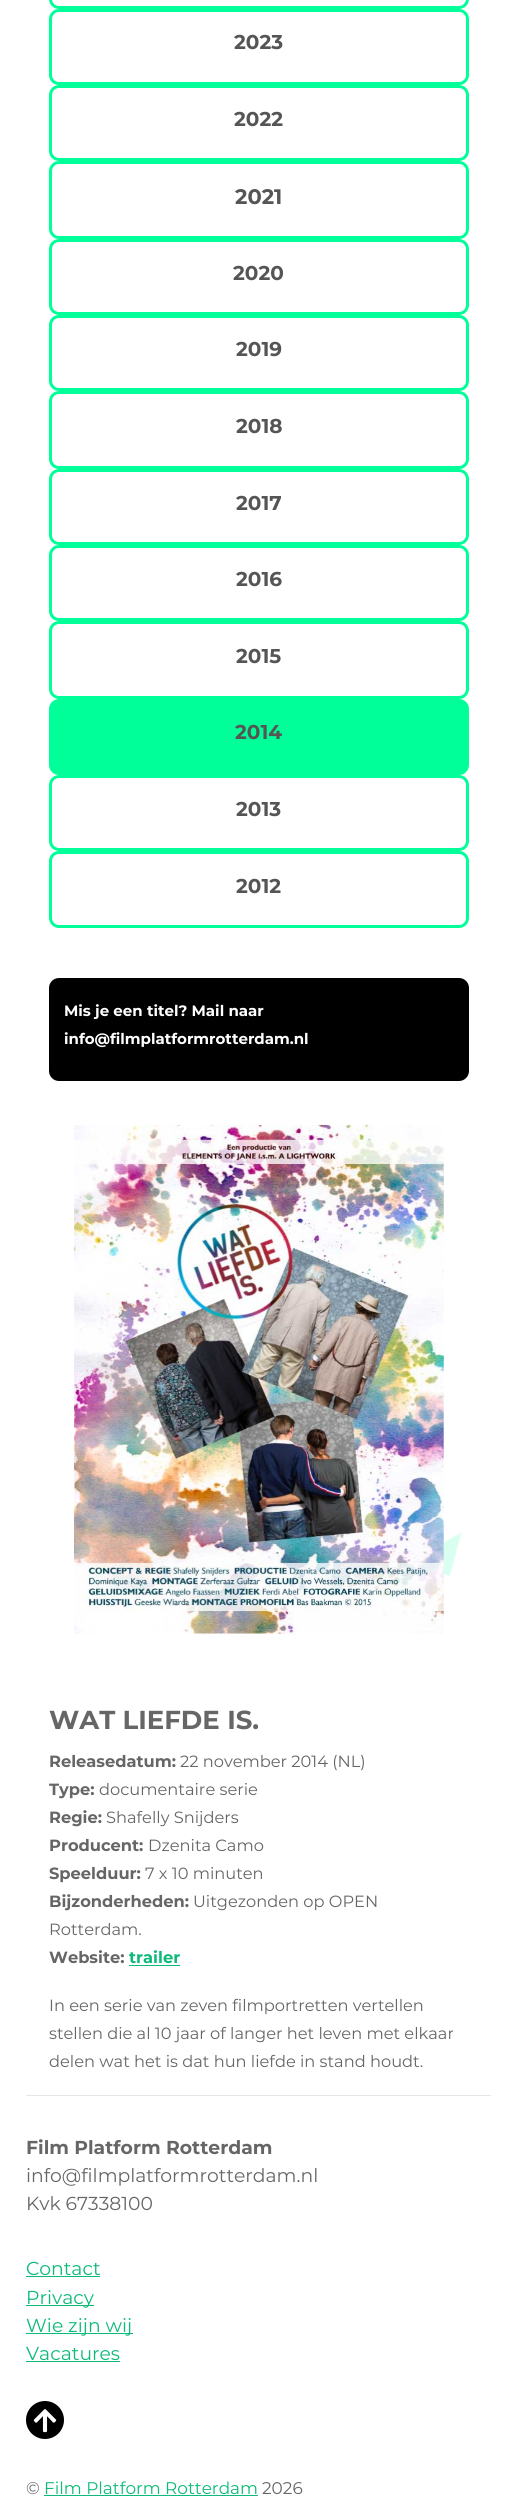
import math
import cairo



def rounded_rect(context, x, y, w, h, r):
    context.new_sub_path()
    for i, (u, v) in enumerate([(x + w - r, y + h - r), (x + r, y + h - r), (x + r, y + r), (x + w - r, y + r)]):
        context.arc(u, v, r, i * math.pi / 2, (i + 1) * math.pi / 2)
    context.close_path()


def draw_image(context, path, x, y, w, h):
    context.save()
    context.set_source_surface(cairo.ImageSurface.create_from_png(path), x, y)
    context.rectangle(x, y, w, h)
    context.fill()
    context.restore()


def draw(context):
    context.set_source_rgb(1, 1, 1)
    context.paint()
    draw_image(context, "images/1.png", 443, 1532, 19, 44)
    rounded_rect(context, 50.5, -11.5, 417, 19, 8.5)
    context.set_source_rgb(0, 1, 153 / 255)
    context.set_line_width(3)
    context.stroke()
    rounded_rect(context, 50.5, 10.5, 417, 73, 8.5)
    context.stroke()
    rounded_rect(context, 50.5, 86.5, 417, 73, 8.5)
    context.stroke()
    rounded_rect(context, 50.5, 162.5, 417, 75, 8.5)
    context.stroke()
    rounded_rect(context, 50.5, 240.5, 417, 73, 8.5)
    context.stroke()
    rounded_rect(context, 50.5, 316.5, 417, 73, 8.5)
    context.stroke()
    rounded_rect(context, 50.5, 392.5, 417, 75, 8.5)
    context.stroke()
    rounded_rect(context, 50.5, 470.5, 417, 73, 8.5)
    context.stroke()
    rounded_rect(context, 50.5, 546.5, 417, 73, 8.5)
    context.stroke()
    rounded_rect(context, 50.5, 622.5, 417, 75, 8.5)
    context.stroke()
    rounded_rect(context, 50.5, 700.5, 417, 73, 8.5)
    context.fill_preserve()
    context.stroke()
    rounded_rect(context, 50.5, 776.5, 417, 73, 8.5)
    context.stroke()
    rounded_rect(context, 50.5, 852.5, 417, 74, 8.5)
    context.stroke()
    context.set_source_rgb(0, 0, 0)
    rounded_rect(context, 49, 978, 420, 103, 10)
    context.fill()
    draw_image(context, "images/2.png", 74, 1124, 370, 510)
    context.set_source_rgb(13 / 255, 186 / 255, 120 / 255)
    context.rectangle(129, 1965, 51, 1)
    context.fill()
    context.set_source_rgb(230 / 255, 230 / 255, 230 / 255)
    context.rectangle(26, 2095, 465, 1)
    context.fill()
    context.set_source_rgb(13 / 255, 186 / 255, 120 / 255)
    context.rectangle(26, 2276, 74, 1)
    context.fill()
    context.rectangle(26, 2305, 68, 1)
    context.fill()
    context.rectangle(26, 2333, 107, 1)
    context.fill()
    context.rectangle(26, 2361, 94, 1)
    context.fill()
    context.set_source_rgb(0, 0, 0)
    context.arc(45, 2420, 19, 0, 2 * math.pi)
    context.fill()
    draw_image(context, "images/3.png", 33, 2409, 24, 24)
    context.set_source_rgb(13 / 255, 186 / 255, 120 / 255)
    context.rectangle(44, 2495, 214, 1)
    context.fill()
    context.select_font_face("Montserrat", cairo.FontSlant.NORMAL, cairo.FontWeight.BOLD)
    context.set_font_size(20)
    context.set_source_rgb(85 / 255, 85 / 255, 85 / 255)
    context.move_to(234, 49)
    context.show_text("2023")
    context.move_to(234, 126)
    context.show_text("2022")
    context.set_font_size(21)
    context.move_to(235, 204)
    context.show_text("2021")
    context.set_font_size(20)
    context.move_to(233, 280)
    context.show_text("2020")
    context.move_to(236, 356)
    context.show_text("2019")
    context.move_to(236, 433)
    context.show_text("2018")
    context.move_to(236, 510)
    context.show_text("2017")
    context.move_to(236, 586)
    context.show_text("2016")
    context.move_to(236, 663)
    context.show_text("2015")
    context.move_to(235, 739)
    context.show_text("2014")
    context.move_to(236, 816)
    context.show_text("2013")
    context.move_to(236, 893)
    context.show_text("2012")
    context.set_font_size(15)
    context.set_source_rgb(1, 1, 1)
    context.move_to(64, 1016)
    context.show_text("Mis je een titel? Mail naar")
    context.move_to(64, 1044)
    context.show_text("info@filmplatformrotterdam.nl")
    context.set_font_size(26)
    context.set_source_rgb(102 / 255, 102 / 255, 102 / 255)
    context.move_to(49, 1729)
    context.show_text("WAT LIEFDE IS.")
    context.set_font_size(16.25)
    context.move_to(49, 1767)
    context.show_text("Releasedatum:")
    context.select_font_face("Montserrat")
    context.move_to(180, 1767)
    context.show_text("22 november 2014 (NL)")
    context.select_font_face("Montserrat", cairo.FontSlant.NORMAL, cairo.FontWeight.BOLD)
    context.move_to(49, 1795)
    context.show_text("Type:")
    context.select_font_face("Montserrat")
    context.move_to(99, 1795)
    context.show_text("documentaire serie")
    context.select_font_face("Montserrat", cairo.FontSlant.NORMAL, cairo.FontWeight.BOLD)
    context.move_to(49, 1823)
    context.show_text("Regie:")
    context.select_font_face("Montserrat")
    context.move_to(106, 1823)
    context.show_text("Shafelly Snijders")
    context.select_font_face("Montserrat", cairo.FontSlant.NORMAL, cairo.FontWeight.BOLD)
    context.move_to(49, 1851)
    context.show_text("Producent:")
    context.select_font_face("Montserrat")
    context.move_to(148, 1851)
    context.show_text("Dzenita Camo")
    context.select_font_face("Montserrat", cairo.FontSlant.NORMAL, cairo.FontWeight.BOLD)
    context.move_to(49, 1879)
    context.show_text("Speelduur:")
    context.select_font_face("Montserrat")
    context.move_to(145, 1879)
    context.show_text("7 x 10 minuten")
    context.select_font_face("Montserrat", cairo.FontSlant.NORMAL, cairo.FontWeight.BOLD)
    context.move_to(49, 1907)
    context.show_text("Bijzonderheden:")
    context.select_font_face("Montserrat")
    context.move_to(193, 1907)
    context.show_text("Uitgezonden op OPEN")
    context.move_to(49, 1935)
    context.show_text("Rotterdam.")
    context.select_font_face("Montserrat", cairo.FontSlant.NORMAL, cairo.FontWeight.BOLD)
    context.move_to(49, 1963)
    context.show_text("Website:")
    context.set_source_rgb(13 / 255, 186 / 255, 120 / 255)
    context.move_to(129, 1963)
    context.show_text("trailer")
    context.select_font_face("Montserrat")
    context.set_source_rgb(102 / 255, 102 / 255, 102 / 255)
    context.move_to(49, 2011)
    context.show_text("In een serie van zeven filmportretten vertellen")
    context.move_to(49, 2039)
    context.show_text("stellen die al 10 jaar of langer het leven met elkaar")
    context.move_to(49, 2067)
    context.show_text("delen wat het is dat hun liefde in stand houdt.")
    context.select_font_face("Montserrat", cairo.FontSlant.NORMAL, cairo.FontWeight.BOLD)
    context.set_font_size(18.75)
    context.move_to(26, 2154)
    context.show_text("Film Platform Rotterdam")
    context.select_font_face("Montserrat")
    context.move_to(26, 2182)
    context.show_text("info@filmplatformrotterdam.nl")
    context.move_to(26, 2210)
    context.show_text("Kvk 67338100")
    context.set_source_rgb(13 / 255, 186 / 255, 120 / 255)
    context.move_to(26, 2275)
    context.show_text("Contact")
    context.move_to(26, 2304)
    context.show_text("Privacy")
    context.move_to(26, 2332)
    context.show_text("Wie zijn wij")
    context.move_to(26, 2360)
    context.show_text("Vacatures")
    context.set_font_size(16.9)
    context.set_source_rgb(102 / 255, 102 / 255, 102 / 255)
    context.move_to(26, 2494)
    context.show_text("©")
    context.set_source_rgb(13 / 255, 186 / 255, 120 / 255)
    context.move_to(44, 2494)
    context.show_text("Film Platform Rotterdam")
    context.set_source_rgb(102 / 255, 102 / 255, 102 / 255)
    context.move_to(262, 2494)
    context.show_text("2026")


surface = cairo.ImageSurface(cairo.Format.RGB24, 517, 2498)
context = cairo.Context(surface)
options = cairo.FontOptions()
options.set_hint_metrics(cairo.HintMetrics.OFF)
options.set_hint_style(cairo.HintStyle.NONE)
context.set_font_options(options)
context.set_miter_limit(4)
draw(context)
surface.write_to_png("out.png")
